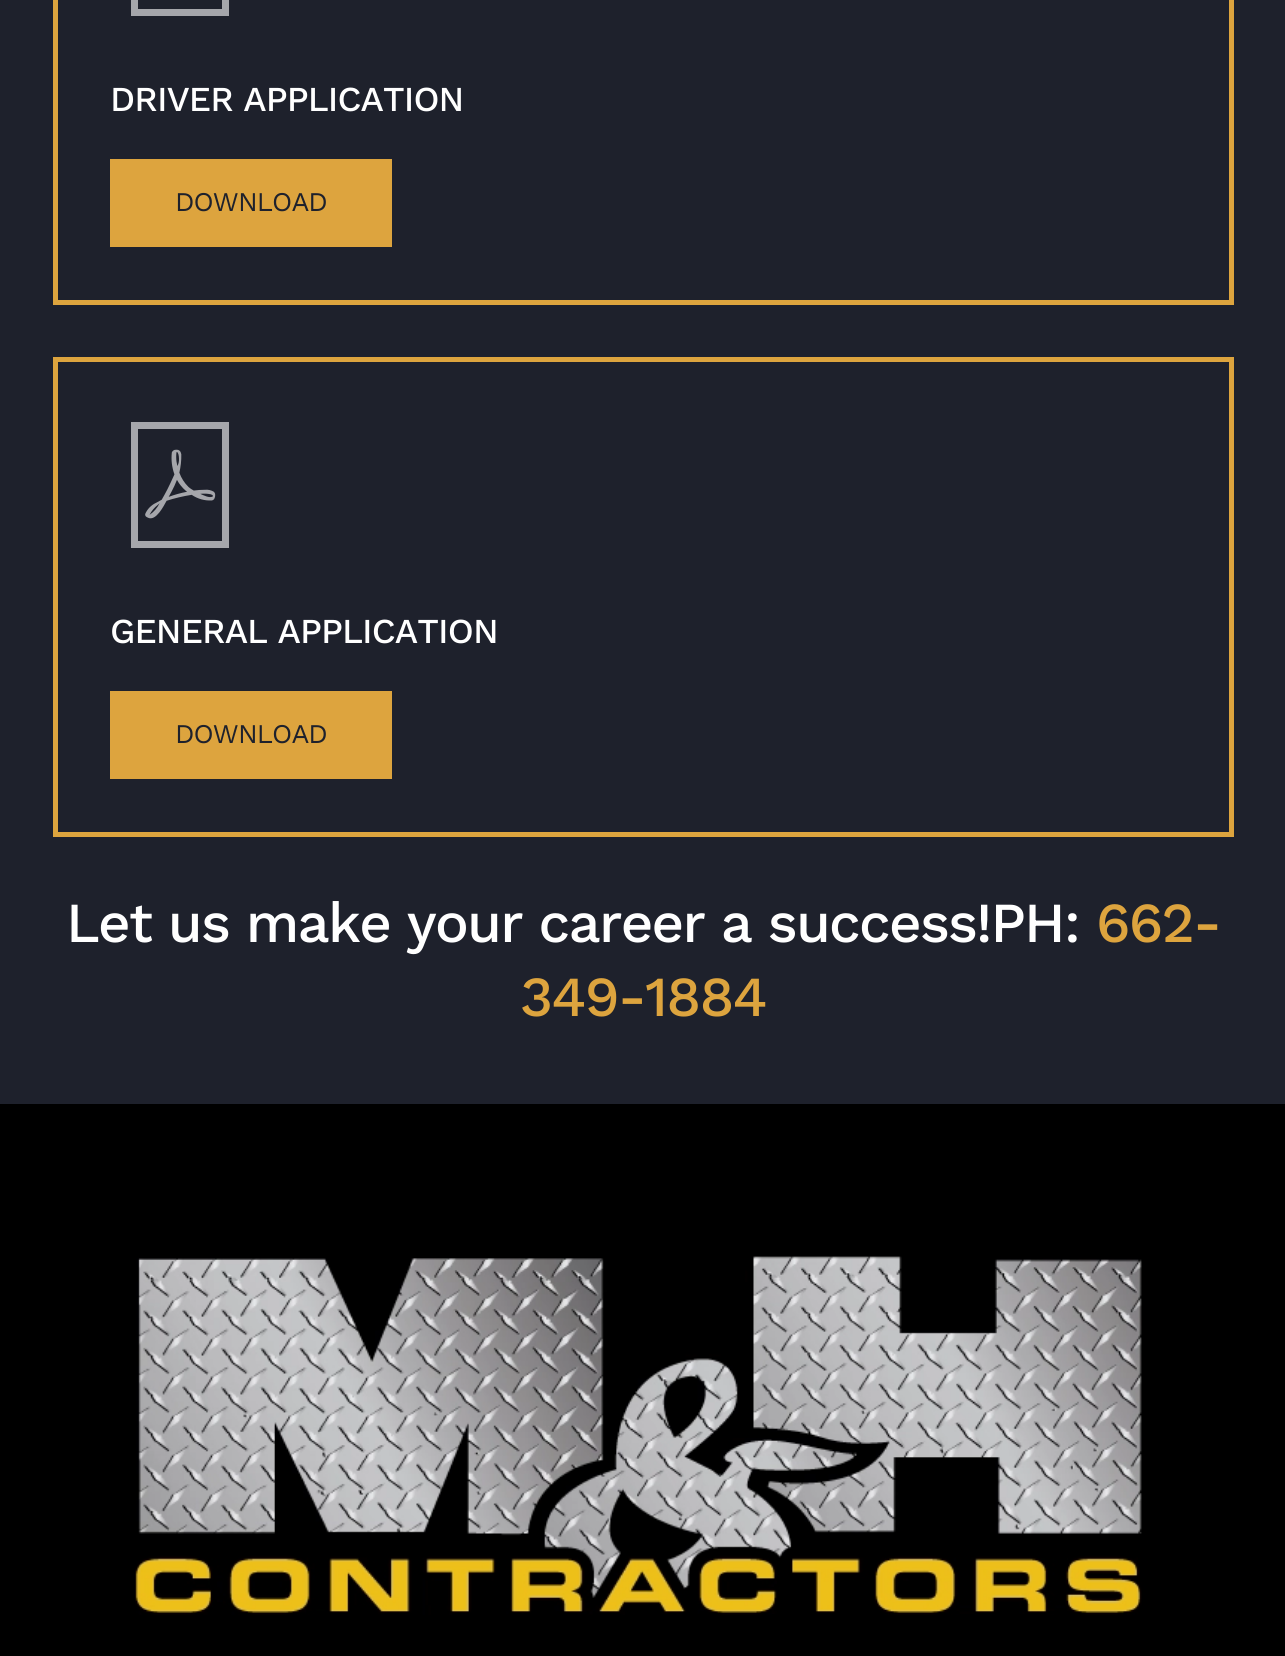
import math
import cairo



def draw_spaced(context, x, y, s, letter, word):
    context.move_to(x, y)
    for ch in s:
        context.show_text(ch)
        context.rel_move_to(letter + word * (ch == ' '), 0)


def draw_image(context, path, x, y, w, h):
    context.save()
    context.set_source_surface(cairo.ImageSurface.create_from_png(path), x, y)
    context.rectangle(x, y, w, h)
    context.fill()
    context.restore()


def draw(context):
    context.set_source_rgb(30 / 255, 33 / 255, 44 / 255)
    context.paint()
    context.rectangle(55.5, -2.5, 1176, 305)
    context.set_source_rgb(221 / 255, 164 / 255, 62 / 255)
    context.set_line_width(5)
    context.stroke()
    draw_image(context, "images/1.png", 131, 0, 98, 16)
    context.rectangle(110, 159, 282, 88)
    context.fill()
    context.rectangle(55.5, 359.5, 1176, 475)
    context.stroke()
    draw_image(context, "images/2.png", 131, 422, 98, 126)
    context.rectangle(110, 691, 282, 88)
    context.fill()
    context.set_source_rgb(0, 0, 0)
    context.rectangle(0, 1104, 1285, 552)
    context.fill()
    draw_image(context, "images/3.png", 135, 1256, 1007, 359)
    context.select_font_face("Work Sans Medium")
    context.set_font_size(35)
    context.set_source_rgb(1, 1, 1)
    draw_spaced(context, 110, 111, "DRIVER APPLICATION", -0.9, 0)
    context.select_font_face("Work Sans")
    context.set_font_size(27)
    context.set_source_rgb(30 / 255, 33 / 255, 44 / 255)
    draw_spaced(context, 175, 211, "DOWNLOAD", -0.9, 0)
    context.select_font_face("Work Sans Medium")
    context.set_font_size(35)
    context.set_source_rgb(1, 1, 1)
    draw_spaced(context, 110, 643, "GENERAL APPLICATION", -0.9, 0)
    context.select_font_face("Work Sans")
    context.set_font_size(27)
    context.set_source_rgb(30 / 255, 33 / 255, 44 / 255)
    draw_spaced(context, 175, 743, "DOWNLOAD", -0.9, 0)
    context.select_font_face("Work Sans Medium")
    context.set_font_size(56.5)
    context.set_source_rgb(1, 1, 1)
    draw_spaced(context, 66, 942, "Let us make your career a success!PH:", -1.75, 0)
    context.set_source_rgb(221 / 255, 164 / 255, 62 / 255)
    draw_spaced(context, 1096, 942, "662-", -1.75, 0)
    draw_spaced(context, 520, 1016, "349-1884", -1.75, 0)


surface = cairo.ImageSurface(cairo.Format.RGB24, 1285, 1656)
context = cairo.Context(surface)
options = cairo.FontOptions()
options.set_hint_metrics(cairo.HintMetrics.OFF)
options.set_hint_style(cairo.HintStyle.NONE)
context.set_font_options(options)
context.set_miter_limit(4)
draw(context)
surface.write_to_png("out.png")
